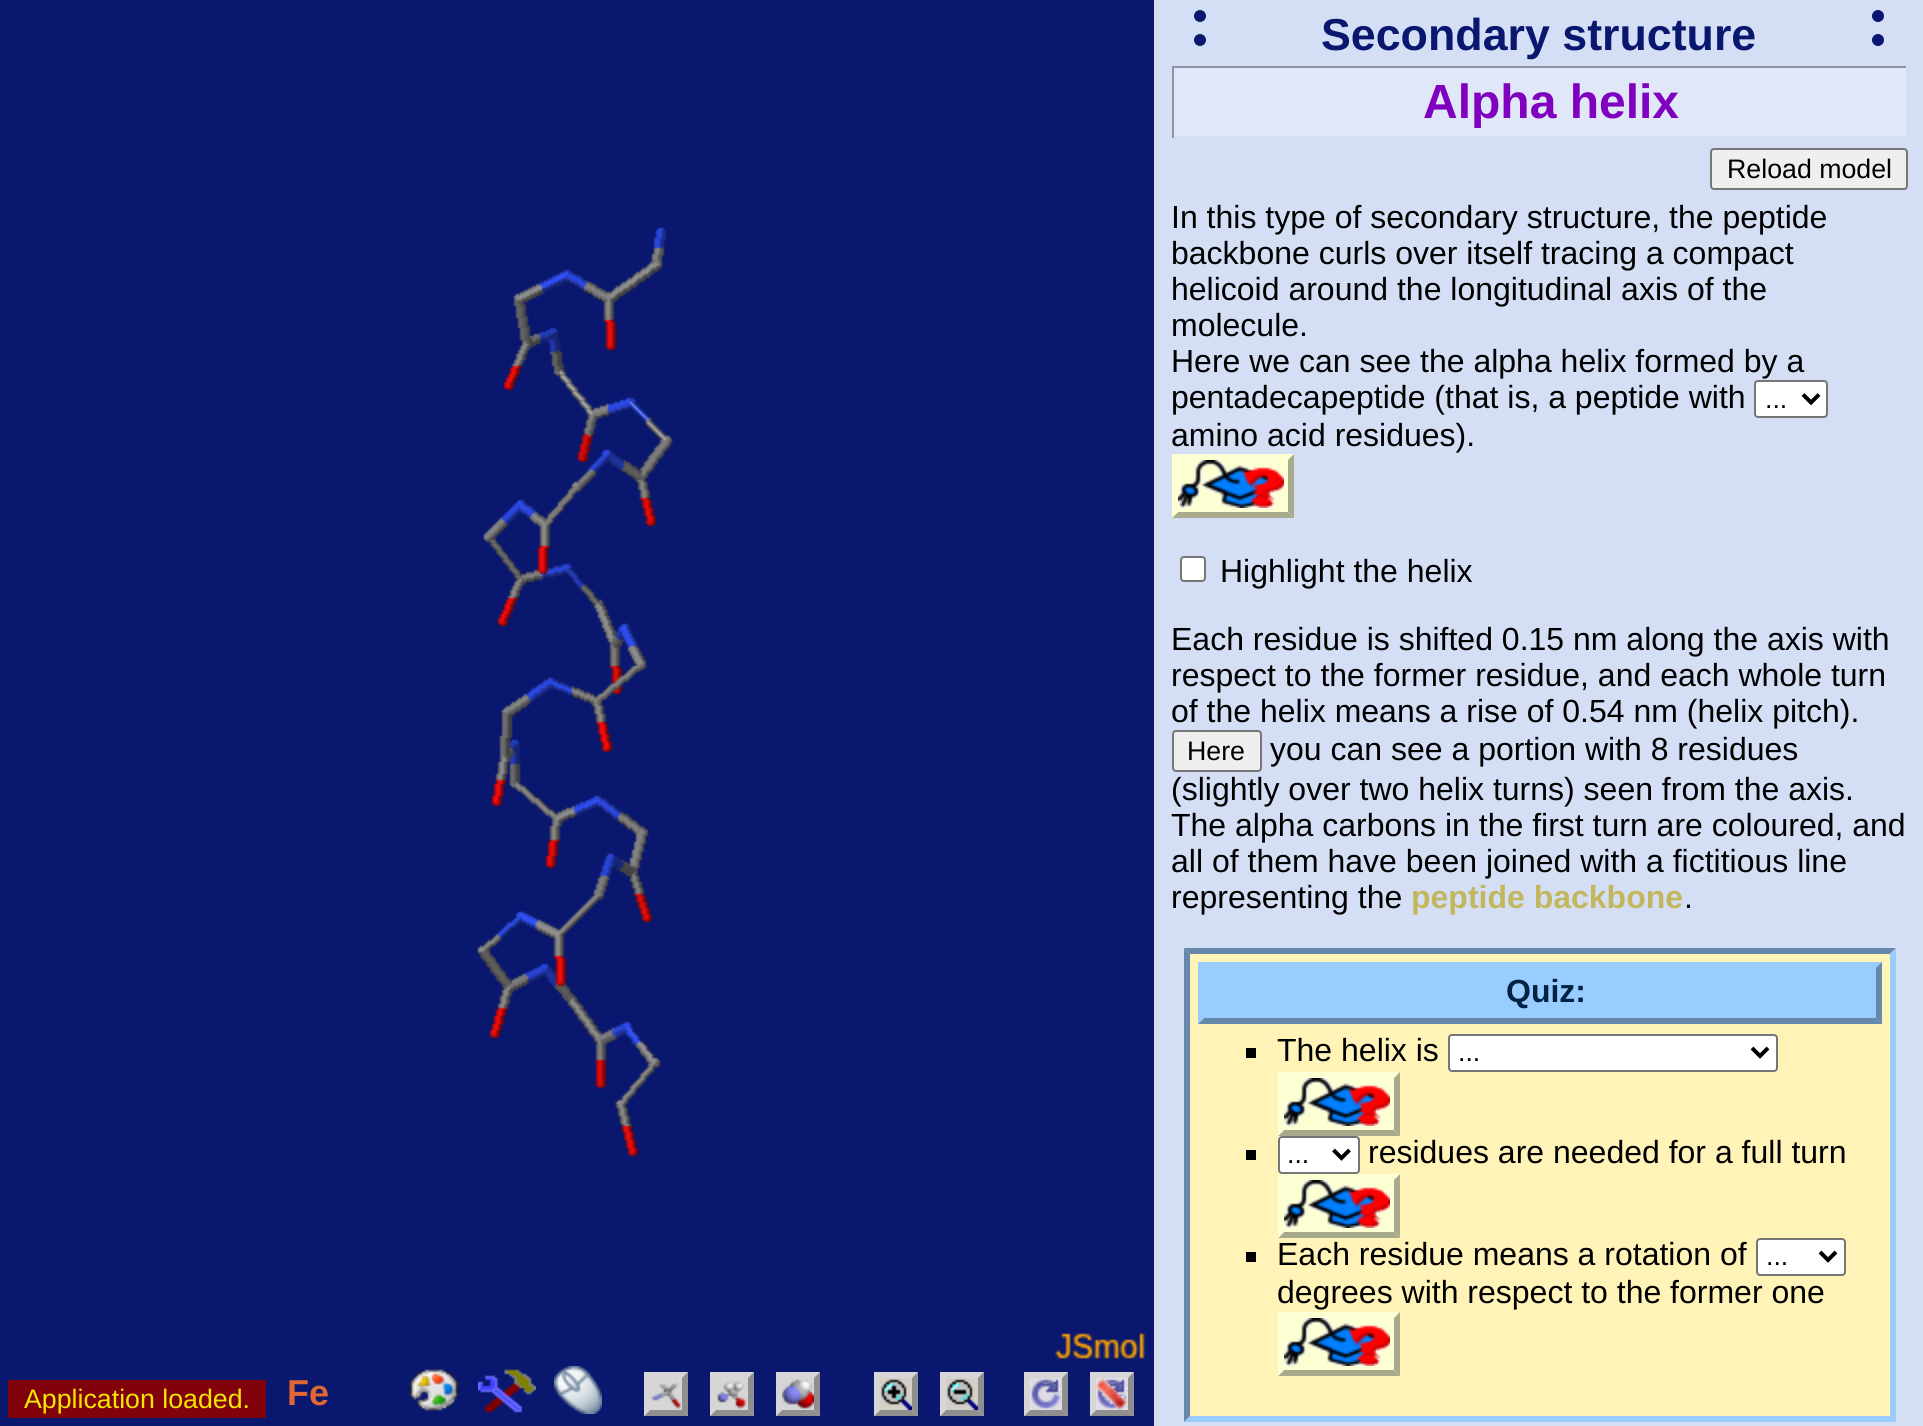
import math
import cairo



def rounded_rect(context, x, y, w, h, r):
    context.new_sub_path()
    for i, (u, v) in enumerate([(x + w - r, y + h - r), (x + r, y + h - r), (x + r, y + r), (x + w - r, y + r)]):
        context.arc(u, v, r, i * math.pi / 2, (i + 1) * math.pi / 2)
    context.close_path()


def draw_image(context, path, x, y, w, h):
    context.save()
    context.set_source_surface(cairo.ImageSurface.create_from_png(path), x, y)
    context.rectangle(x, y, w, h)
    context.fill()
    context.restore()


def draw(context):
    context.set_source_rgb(212 / 255, 223 / 255, 246 / 255)
    context.paint()
    context.new_path()
    context.move_to(1878, 16)
    context.line_to(1878, 56)
    context.set_source_rgb(9 / 255, 23 / 255, 110 / 255)
    context.set_line_width(12)
    context.set_line_cap(cairo.LineCap.ROUND)
    context.set_dash([0, 24])
    context.stroke()
    context.new_path()
    context.move_to(1200, 16)
    context.line_to(1200, 56)
    context.stroke()
    context.set_source_rgb(223 / 255, 231 / 255, 248 / 255)
    context.rectangle(1174, 68, 732, 68)
    context.fill()
    context.set_source_rgb(141 / 255, 149 / 255, 164 / 255)
    context.rectangle(1172, 66, 736, 2)
    context.fill()
    context.set_source_rgb(212 / 255, 223 / 255, 246 / 255)
    context.rectangle(1906, 66, 2, 2)
    context.fill()
    context.set_source_rgb(141 / 255, 149 / 255, 164 / 255)
    context.rectangle(1172, 66, 2, 72)
    context.fill()
    context.set_source_rgb(239 / 255, 239 / 255, 239 / 255)
    rounded_rect(context, 1711, 149, 196, 40, 3)
    context.fill_preserve()
    context.set_source_rgb(118 / 255, 118 / 255, 118 / 255)
    context.set_line_width(2)
    context.set_line_cap(cairo.LineCap.BUTT)
    context.set_dash([])
    context.stroke()
    context.set_source_rgb(1, 1, 1)
    rounded_rect(context, 1755, 381, 72, 36, 3)
    context.fill_preserve()
    context.set_source_rgb(118 / 255, 118 / 255, 118 / 255)
    context.stroke()
    context.new_path()
    context.move_to(1803, 394.5)
    context.line_to(1811, 402.5)
    context.line_to(1819, 394.5)
    context.set_source_rgb(0, 0, 0)
    context.set_line_width(4)
    context.stroke()
    context.set_source_rgb(252 / 255, 1, 210 / 255)
    context.rectangle(1172, 454, 122, 64)
    context.fill()
    draw_image(context, "images/1.png", 1178, 460, 106, 48)
    context.set_source_rgb(168 / 255, 170 / 255, 140 / 255)
    context.new_path()
    context.move_to(1294, 454)
    context.line_to(1294, 518)
    context.line_to(1288, 512)
    context.line_to(1288, 460)
    context.close_path()
    context.fill()
    context.new_path()
    context.move_to(1294, 518)
    context.line_to(1172, 518)
    context.line_to(1178, 512)
    context.line_to(1288, 512)
    context.close_path()
    context.fill()
    context.set_source_rgb(252 / 255, 1, 210 / 255)
    context.new_path()
    context.move_to(1172, 518)
    context.line_to(1172, 454)
    context.line_to(1178, 460)
    context.line_to(1178, 512)
    context.close_path()
    context.fill()
    context.set_source_rgb(1, 1, 1)
    rounded_rect(context, 1181, 557, 24, 24, 3)
    context.fill_preserve()
    context.set_source_rgb(118 / 255, 118 / 255, 118 / 255)
    context.set_line_width(2)
    context.stroke()
    context.set_source_rgb(239 / 255, 239 / 255, 239 / 255)
    rounded_rect(context, 1173, 731, 88, 40, 3)
    context.fill_preserve()
    context.set_source_rgb(118 / 255, 118 / 255, 118 / 255)
    context.stroke()
    context.set_source_rgb(1, 243 / 255, 184 / 255)
    context.rectangle(1184, 948, 712, 474)
    context.fill()
    context.set_source_rgb(102 / 255, 136 / 255, 170 / 255)
    context.new_path()
    context.move_to(1184, 948)
    context.line_to(1896, 948)
    context.line_to(1890, 954)
    context.line_to(1190, 954)
    context.close_path()
    context.fill()
    context.set_source_rgb(153 / 255, 204 / 255, 1)
    context.new_path()
    context.move_to(1896, 948)
    context.line_to(1896, 1422)
    context.line_to(1890, 1416)
    context.line_to(1890, 954)
    context.close_path()
    context.fill()
    context.new_path()
    context.move_to(1896, 1422)
    context.line_to(1184, 1422)
    context.line_to(1190, 1416)
    context.line_to(1890, 1416)
    context.close_path()
    context.fill()
    context.set_source_rgb(102 / 255, 136 / 255, 170 / 255)
    context.new_path()
    context.move_to(1184, 1422)
    context.line_to(1184, 948)
    context.line_to(1190, 954)
    context.line_to(1190, 1416)
    context.close_path()
    context.fill()
    context.set_source_rgb(153 / 255, 204 / 255, 1)
    context.rectangle(1198, 962, 684, 62)
    context.fill()
    context.set_source_rgb(102 / 255, 136 / 255, 170 / 255)
    context.new_path()
    context.move_to(1882, 962)
    context.line_to(1882, 1024)
    context.line_to(1876, 1018)
    context.line_to(1876, 968)
    context.close_path()
    context.fill()
    context.new_path()
    context.move_to(1882, 1024)
    context.line_to(1198, 1024)
    context.line_to(1204, 1018)
    context.line_to(1876, 1018)
    context.close_path()
    context.fill()
    context.set_source_rgb(153 / 255, 204 / 255, 1)
    context.new_path()
    context.move_to(1198, 1024)
    context.line_to(1198, 962)
    context.line_to(1204, 968)
    context.line_to(1204, 1018)
    context.close_path()
    context.fill()
    context.set_source_rgb(0, 0, 0)
    context.rectangle(1246, 1048, 10, 10)
    context.fill()
    context.set_source_rgb(1, 1, 1)
    rounded_rect(context, 1449, 1035, 328, 36, 3)
    context.fill_preserve()
    context.set_source_rgb(118 / 255, 118 / 255, 118 / 255)
    context.stroke()
    context.new_path()
    context.move_to(1752, 1048)
    context.line_to(1760, 1056)
    context.line_to(1768, 1048)
    context.set_source_rgb(0, 0, 0)
    context.set_line_width(4)
    context.stroke()
    context.set_source_rgb(252 / 255, 1, 210 / 255)
    context.rectangle(1278, 1072, 122, 64)
    context.fill()
    draw_image(context, "images/1.png", 1284, 1078, 106, 48)
    context.set_source_rgb(168 / 255, 170 / 255, 140 / 255)
    context.new_path()
    context.move_to(1400, 1072)
    context.line_to(1400, 1136)
    context.line_to(1394, 1130)
    context.line_to(1394, 1078)
    context.close_path()
    context.fill()
    context.new_path()
    context.move_to(1400, 1136)
    context.line_to(1278, 1136)
    context.line_to(1284, 1130)
    context.line_to(1394, 1130)
    context.close_path()
    context.fill()
    context.set_source_rgb(252 / 255, 1, 210 / 255)
    context.new_path()
    context.move_to(1278, 1136)
    context.line_to(1278, 1072)
    context.line_to(1284, 1078)
    context.line_to(1284, 1130)
    context.close_path()
    context.fill()
    context.set_source_rgb(0, 0, 0)
    context.rectangle(1246, 1150, 10, 10)
    context.fill()
    context.set_source_rgb(1, 1, 1)
    rounded_rect(context, 1279, 1137, 80, 36, 3)
    context.fill_preserve()
    context.set_source_rgb(118 / 255, 118 / 255, 118 / 255)
    context.set_line_width(2)
    context.stroke()
    context.new_path()
    context.move_to(1333.5, 1150)
    context.line_to(1341.5, 1158)
    context.line_to(1349.5, 1150)
    context.set_source_rgb(0, 0, 0)
    context.set_line_width(4)
    context.stroke()
    context.set_source_rgb(252 / 255, 1, 210 / 255)
    context.rectangle(1278, 1174, 122, 64)
    context.fill()
    draw_image(context, "images/1.png", 1284, 1180, 106, 48)
    context.set_source_rgb(168 / 255, 170 / 255, 140 / 255)
    context.new_path()
    context.move_to(1400, 1174)
    context.line_to(1400, 1238)
    context.line_to(1394, 1232)
    context.line_to(1394, 1180)
    context.close_path()
    context.fill()
    context.new_path()
    context.move_to(1400, 1238)
    context.line_to(1278, 1238)
    context.line_to(1284, 1232)
    context.line_to(1394, 1232)
    context.close_path()
    context.fill()
    context.set_source_rgb(252 / 255, 1, 210 / 255)
    context.new_path()
    context.move_to(1278, 1238)
    context.line_to(1278, 1174)
    context.line_to(1284, 1180)
    context.line_to(1284, 1232)
    context.close_path()
    context.fill()
    context.set_source_rgb(0, 0, 0)
    context.rectangle(1246, 1252, 10, 10)
    context.fill()
    context.set_source_rgb(1, 1, 1)
    rounded_rect(context, 1757, 1239, 88, 36, 3)
    context.fill_preserve()
    context.set_source_rgb(118 / 255, 118 / 255, 118 / 255)
    context.set_line_width(2)
    context.stroke()
    context.new_path()
    context.move_to(1820, 1252)
    context.line_to(1828, 1260)
    context.line_to(1836, 1252)
    context.set_source_rgb(0, 0, 0)
    context.set_line_width(4)
    context.stroke()
    context.set_source_rgb(252 / 255, 1, 210 / 255)
    context.rectangle(1278, 1312, 122, 64)
    context.fill()
    draw_image(context, "images/1.png", 1284, 1318, 106, 48)
    context.set_source_rgb(168 / 255, 170 / 255, 140 / 255)
    context.new_path()
    context.move_to(1400, 1312)
    context.line_to(1400, 1376)
    context.line_to(1394, 1370)
    context.line_to(1394, 1318)
    context.close_path()
    context.fill()
    context.new_path()
    context.move_to(1400, 1376)
    context.line_to(1278, 1376)
    context.line_to(1284, 1370)
    context.line_to(1394, 1370)
    context.close_path()
    context.fill()
    context.set_source_rgb(252 / 255, 1, 210 / 255)
    context.new_path()
    context.move_to(1278, 1376)
    context.line_to(1278, 1312)
    context.line_to(1284, 1318)
    context.line_to(1284, 1370)
    context.close_path()
    context.fill()
    context.set_source_rgb(9 / 255, 23 / 255, 110 / 255)
    context.rectangle(0, 0, 1154, 1426)
    context.fill()
    context.set_source_rgba(142 / 255, 0, 0, 0.9)
    context.rectangle(8, 1380, 258, 38)
    context.fill()
    draw_image(context, "images/2.png", 477, 227, 668, 1132)
    draw_image(context, "images/3.png", 410, 1369, 48, 42)
    draw_image(context, "images/4.png", 478, 1369, 58, 44)
    draw_image(context, "images/5.png", 554, 1366, 48, 48)
    context.set_source_rgb(214 / 255, 214 / 255, 214 / 255)
    context.rectangle(644, 1372, 44, 44)
    context.fill()
    context.set_source_rgb(143 / 255, 143 / 255, 143 / 255)
    context.new_path()
    context.move_to(688, 1372)
    context.line_to(688, 1416)
    context.line_to(682, 1410)
    context.line_to(682, 1378)
    context.close_path()
    context.fill()
    context.new_path()
    context.move_to(688, 1416)
    context.line_to(644, 1416)
    context.line_to(650, 1410)
    context.line_to(682, 1410)
    context.close_path()
    context.fill()
    context.set_source_rgb(214 / 255, 214 / 255, 214 / 255)
    context.new_path()
    context.move_to(644, 1416)
    context.line_to(644, 1372)
    context.line_to(650, 1378)
    context.line_to(650, 1410)
    context.close_path()
    context.fill()
    context.rectangle(710, 1372, 44, 44)
    context.fill()
    context.set_source_rgb(143 / 255, 143 / 255, 143 / 255)
    context.new_path()
    context.move_to(754, 1372)
    context.line_to(754, 1416)
    context.line_to(748, 1410)
    context.line_to(748, 1378)
    context.close_path()
    context.fill()
    context.new_path()
    context.move_to(754, 1416)
    context.line_to(710, 1416)
    context.line_to(716, 1410)
    context.line_to(748, 1410)
    context.close_path()
    context.fill()
    context.set_source_rgb(214 / 255, 214 / 255, 214 / 255)
    context.new_path()
    context.move_to(710, 1416)
    context.line_to(710, 1372)
    context.line_to(716, 1378)
    context.line_to(716, 1410)
    context.close_path()
    context.fill()
    context.rectangle(776, 1372, 44, 44)
    context.fill()
    draw_image(context, "images/6.png", 651, 1382, 30, 27)
    draw_image(context, "images/7.png", 717, 1381, 30, 28)
    context.set_source_rgb(143 / 255, 143 / 255, 143 / 255)
    context.new_path()
    context.move_to(820, 1372)
    context.line_to(820, 1416)
    context.line_to(814, 1410)
    context.line_to(814, 1378)
    context.close_path()
    context.fill()
    context.new_path()
    context.move_to(820, 1416)
    context.line_to(776, 1416)
    context.line_to(782, 1410)
    context.line_to(814, 1410)
    context.close_path()
    context.fill()
    context.set_source_rgb(214 / 255, 214 / 255, 214 / 255)
    context.new_path()
    context.move_to(776, 1416)
    context.line_to(776, 1372)
    context.line_to(782, 1378)
    context.line_to(782, 1410)
    context.close_path()
    context.fill()
    draw_image(context, "images/8.png", 782, 1379, 32, 30)
    context.rectangle(874, 1372, 44, 44)
    context.fill()
    context.set_source_rgb(143 / 255, 143 / 255, 143 / 255)
    context.new_path()
    context.move_to(918, 1372)
    context.line_to(918, 1416)
    context.line_to(912, 1410)
    context.line_to(912, 1378)
    context.close_path()
    context.fill()
    context.new_path()
    context.move_to(918, 1416)
    context.line_to(874, 1416)
    context.line_to(880, 1410)
    context.line_to(912, 1410)
    context.close_path()
    context.fill()
    context.set_source_rgb(214 / 255, 214 / 255, 214 / 255)
    context.new_path()
    context.move_to(874, 1416)
    context.line_to(874, 1372)
    context.line_to(880, 1378)
    context.line_to(880, 1410)
    context.close_path()
    context.fill()
    context.rectangle(940, 1372, 44, 44)
    context.fill()
    draw_image(context, "images/9.png", 880, 1378, 32, 32)
    context.set_source_rgb(143 / 255, 143 / 255, 143 / 255)
    context.new_path()
    context.move_to(984, 1372)
    context.line_to(984, 1416)
    context.line_to(978, 1410)
    context.line_to(978, 1378)
    context.close_path()
    context.fill()
    context.new_path()
    context.move_to(984, 1416)
    context.line_to(940, 1416)
    context.line_to(946, 1410)
    context.line_to(978, 1410)
    context.close_path()
    context.fill()
    context.set_source_rgb(214 / 255, 214 / 255, 214 / 255)
    context.new_path()
    context.move_to(940, 1416)
    context.line_to(940, 1372)
    context.line_to(946, 1378)
    context.line_to(946, 1410)
    context.close_path()
    context.fill()
    draw_image(context, "images/10.png", 946, 1378, 32, 32)
    context.rectangle(1024, 1372, 44, 44)
    context.fill()
    context.set_source_rgb(143 / 255, 143 / 255, 143 / 255)
    context.new_path()
    context.move_to(1068, 1372)
    context.line_to(1068, 1416)
    context.line_to(1062, 1410)
    context.line_to(1062, 1378)
    context.close_path()
    context.fill()
    context.new_path()
    context.move_to(1068, 1416)
    context.line_to(1024, 1416)
    context.line_to(1030, 1410)
    context.line_to(1062, 1410)
    context.close_path()
    context.fill()
    context.set_source_rgb(214 / 255, 214 / 255, 214 / 255)
    context.new_path()
    context.move_to(1024, 1416)
    context.line_to(1024, 1372)
    context.line_to(1030, 1378)
    context.line_to(1030, 1410)
    context.close_path()
    context.fill()
    context.rectangle(1090, 1372, 44, 44)
    context.fill()
    draw_image(context, "images/11.png", 1030, 1378, 32, 32)
    context.set_source_rgb(143 / 255, 143 / 255, 143 / 255)
    context.new_path()
    context.move_to(1134, 1372)
    context.line_to(1134, 1416)
    context.line_to(1128, 1410)
    context.line_to(1128, 1378)
    context.close_path()
    context.fill()
    context.new_path()
    context.move_to(1134, 1416)
    context.line_to(1090, 1416)
    context.line_to(1096, 1410)
    context.line_to(1128, 1410)
    context.close_path()
    context.fill()
    context.set_source_rgb(214 / 255, 214 / 255, 214 / 255)
    context.new_path()
    context.move_to(1090, 1416)
    context.line_to(1090, 1372)
    context.line_to(1096, 1378)
    context.line_to(1096, 1410)
    context.close_path()
    context.fill()
    draw_image(context, "images/12.png", 1096, 1378, 32, 32)
    context.select_font_face("Liberation Sans", cairo.FontSlant.NORMAL, cairo.FontWeight.BOLD)
    context.set_font_size(44.75)
    context.set_source_rgb(9 / 255, 23 / 255, 110 / 255)
    context.move_to(1321, 50)
    context.show_text("Secondary structure")
    context.set_font_size(48)
    context.set_source_rgb(127 / 255, 0, 191 / 255)
    context.move_to(1423, 118)
    context.show_text("Alpha helix")
    context.select_font_face("Liberation Sans")
    context.set_font_size(26.75)
    context.set_source_rgb(0, 0, 0)
    context.move_to(1727, 178)
    context.show_text("Reload model")
    context.set_font_size(32)
    context.move_to(1171, 228)
    context.show_text("In this type of secondary structure, the peptide")
    context.move_to(1171, 264)
    context.show_text("backbone curls over itself tracing a compact")
    context.move_to(1171, 300)
    context.show_text("helicoid around the longitudinal axis of the")
    context.move_to(1171, 336)
    context.show_text("molecule.")
    context.move_to(1171, 372)
    context.show_text("Here we can see the alpha helix formed by a")
    context.move_to(1171, 408)
    context.show_text("pentadecapeptide (that is, a peptide with")
    context.set_font_size(26.75)
    context.move_to(1765, 408)
    context.show_text("...")
    context.set_font_size(32)
    context.move_to(1171, 446)
    context.show_text("amino acid residues).")
    context.move_to(1220, 582)
    context.show_text("Highlight the helix")
    context.move_to(1171, 650)
    context.show_text("Each residue is shifted 0.15 nm along the axis with")
    context.move_to(1171, 686)
    context.show_text("respect to the former residue, and each whole turn")
    context.move_to(1171, 722)
    context.show_text("of the helix means a rise of 0.54 nm (helix pitch).")
    context.set_font_size(26.75)
    context.move_to(1187, 760)
    context.show_text("Here")
    context.set_font_size(32)
    context.move_to(1270, 760)
    context.show_text("you can see a portion with 8 residues")
    context.move_to(1171, 800)
    context.show_text("(slightly over two helix turns) seen from the axis.")
    context.move_to(1171, 836)
    context.show_text("The alpha carbons in the first turn are coloured, and")
    context.move_to(1171, 872)
    context.show_text("all of them have been joined with a fictitious line")
    context.move_to(1171, 908)
    context.show_text("representing the")
    context.select_font_face("Liberation Sans", cairo.FontSlant.NORMAL, cairo.FontWeight.BOLD)
    context.set_source_rgb(195 / 255, 183 / 255, 94 / 255)
    context.move_to(1411, 908)
    context.show_text("peptide backbone")
    context.select_font_face("Liberation Sans")
    context.set_source_rgb(0, 0, 0)
    context.move_to(1684, 908)
    context.show_text(".")
    context.select_font_face("Liberation Sans", cairo.FontSlant.NORMAL, cairo.FontWeight.BOLD)
    context.set_source_rgb(0, 34 / 255, 68 / 255)
    context.move_to(1506, 1002)
    context.show_text("Quiz:")
    context.select_font_face("Liberation Sans")
    context.set_source_rgb(0, 0, 0)
    context.move_to(1277, 1061)
    context.show_text("The helix is")
    context.set_font_size(26.75)
    context.move_to(1458, 1061)
    context.show_text("...")
    context.set_font_size(32)
    context.move_to(1368, 1163)
    context.show_text("residues are needed for a full turn")
    context.set_font_size(26.75)
    context.move_to(1287, 1163)
    context.show_text("...")
    context.set_font_size(32)
    context.move_to(1277, 1265)
    context.show_text("Each residue means a rotation of")
    context.set_font_size(26.75)
    context.move_to(1766, 1265)
    context.show_text("...")
    context.set_font_size(32)
    context.move_to(1277, 1303)
    context.show_text("degrees with respect to the former one")
    context.set_font_size(26.75)
    context.set_source_rgb(243 / 255, 230 / 255, 1 / 255)
    context.move_to(24, 1408)
    context.show_text("Application loaded.")
    context.select_font_face("Liberation Sans", cairo.FontSlant.NORMAL, cairo.FontWeight.BOLD)
    context.set_font_size(36)
    context.set_source_rgb(224 / 255, 102 / 255, 51 / 255)
    context.move_to(287, 1405)
    context.show_text("Fe")


surface = cairo.ImageSurface(cairo.Format.RGB24, 1923, 1426)
context = cairo.Context(surface)
options = cairo.FontOptions()
options.set_hint_metrics(cairo.HintMetrics.OFF)
options.set_hint_style(cairo.HintStyle.NONE)
context.set_font_options(options)
context.set_miter_limit(4)
draw(context)
surface.write_to_png("out.png")
